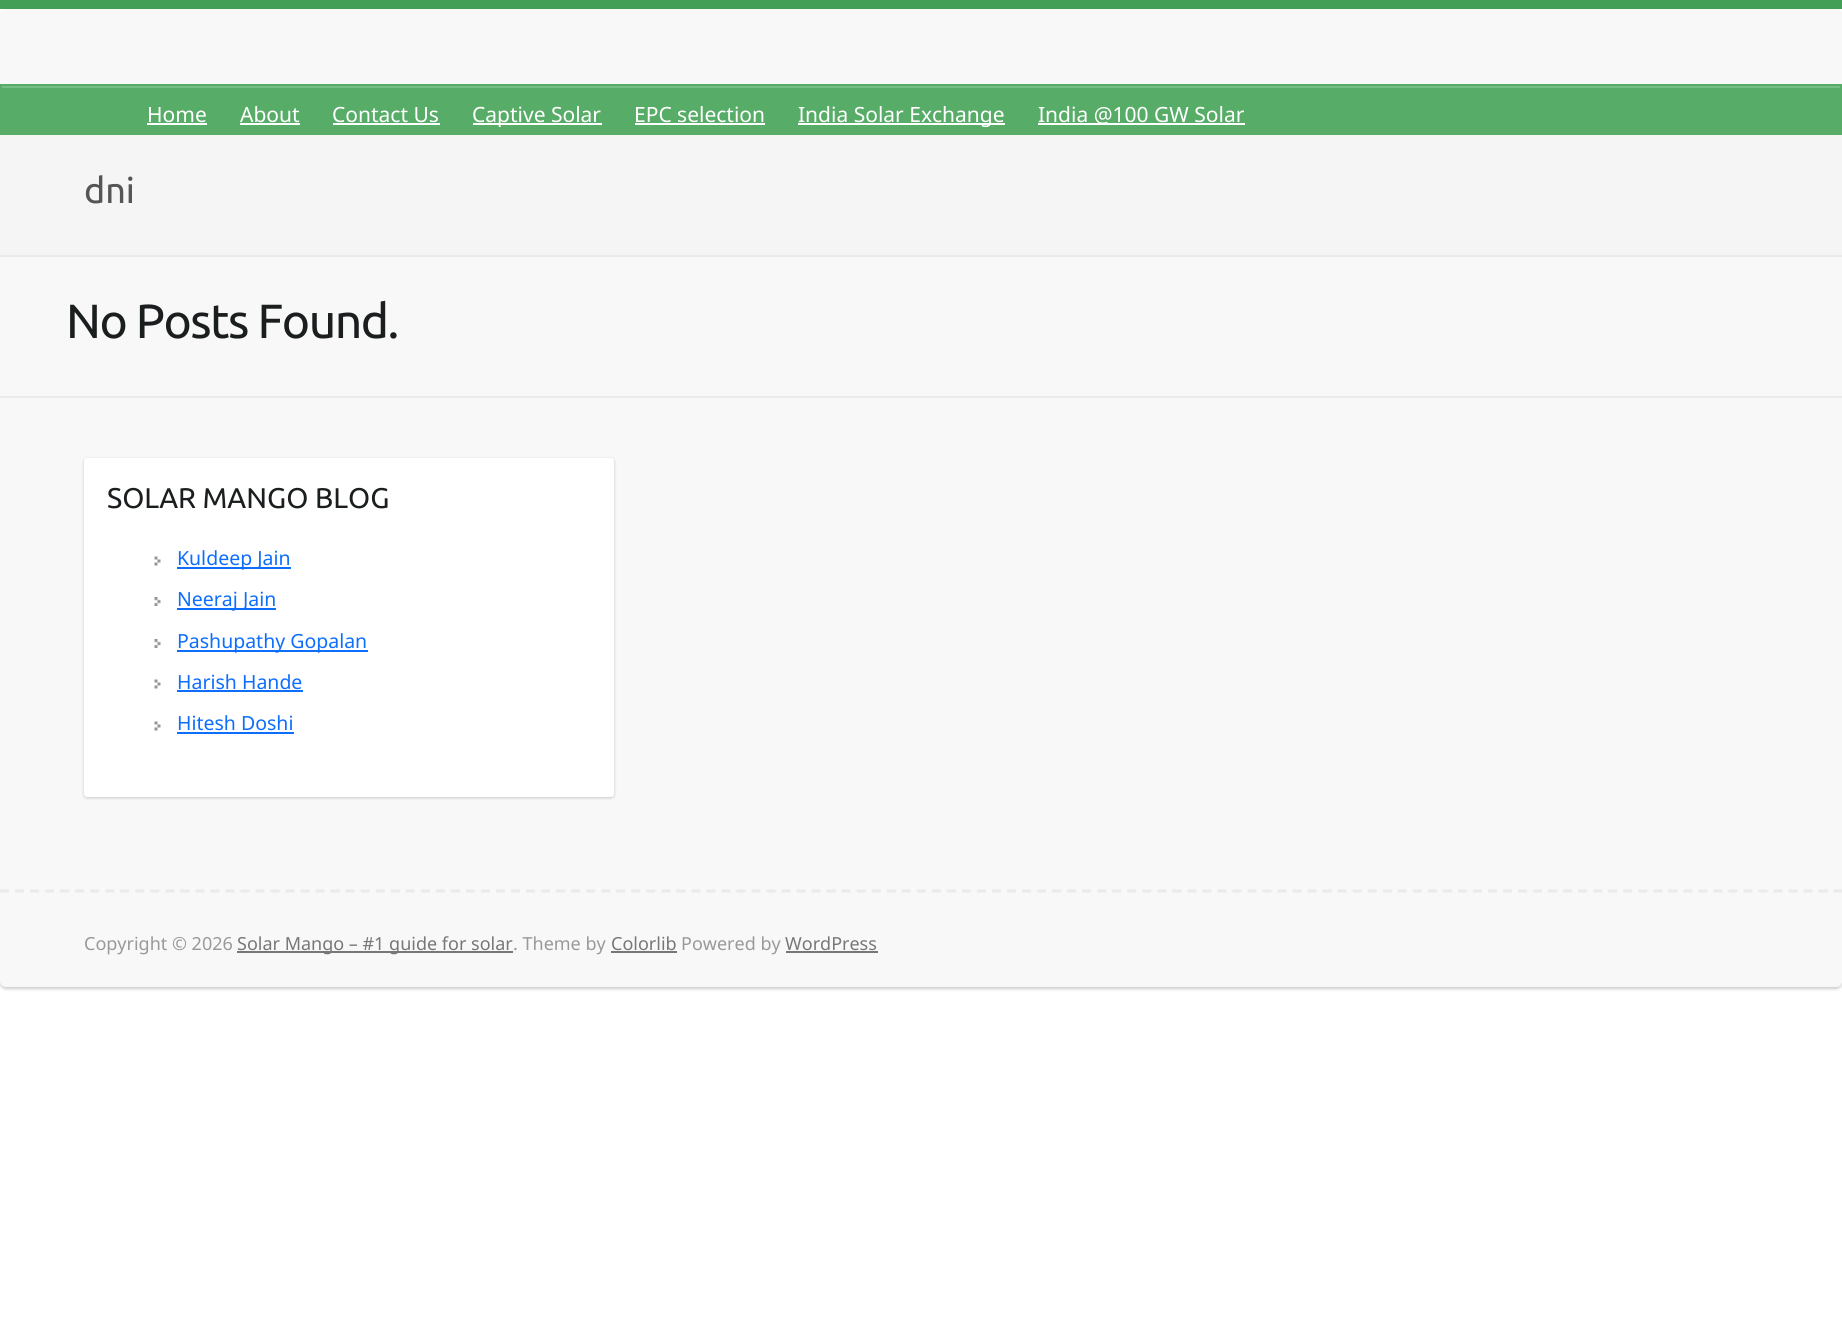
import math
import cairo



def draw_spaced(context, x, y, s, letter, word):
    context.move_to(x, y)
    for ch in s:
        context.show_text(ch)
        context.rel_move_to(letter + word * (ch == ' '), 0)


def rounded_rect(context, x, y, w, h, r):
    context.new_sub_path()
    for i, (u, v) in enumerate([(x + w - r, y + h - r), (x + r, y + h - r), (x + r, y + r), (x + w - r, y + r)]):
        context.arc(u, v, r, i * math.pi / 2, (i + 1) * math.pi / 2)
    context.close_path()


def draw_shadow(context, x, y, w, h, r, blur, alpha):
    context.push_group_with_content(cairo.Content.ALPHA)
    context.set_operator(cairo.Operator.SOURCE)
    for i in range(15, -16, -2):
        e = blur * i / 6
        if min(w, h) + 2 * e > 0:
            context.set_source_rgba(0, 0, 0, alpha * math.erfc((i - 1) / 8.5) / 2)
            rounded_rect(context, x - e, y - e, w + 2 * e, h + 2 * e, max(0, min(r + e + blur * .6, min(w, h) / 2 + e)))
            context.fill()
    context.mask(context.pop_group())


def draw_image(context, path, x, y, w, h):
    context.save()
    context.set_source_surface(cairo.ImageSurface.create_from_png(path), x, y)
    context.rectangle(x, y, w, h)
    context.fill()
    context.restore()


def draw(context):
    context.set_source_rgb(1, 1, 1)
    context.paint()
    context.set_source_rgb(67 / 255, 159 / 255, 85 / 255)
    context.rectangle(0, 0, 1842, 9)
    context.fill()
    context.set_source_rgb(0, 0, 0)
    draw_shadow(context, 0, 11, 1842, 978, 6, 1.5, 0.2)
    context.set_source_rgb(248 / 255, 248 / 255, 248 / 255)
    rounded_rect(context, 0, 9, 1842, 978, 6)
    context.fill()
    context.set_source_rgb(87 / 255, 173 / 255, 104 / 255)
    context.rectangle(2, 88, 1838, 45)
    context.fill()
    context.set_source_rgb(121 / 255, 189 / 255, 134 / 255)
    context.rectangle(2, 86, 1839, 2)
    context.fill()
    context.rectangle(1, 85, 1840, 49)
    context.set_source_rgb(87 / 255, 173 / 255, 104 / 255)
    context.stroke()
    context.set_source_rgb(1, 1, 1)
    context.rectangle(147, 123, 60, 2)
    context.fill()
    context.rectangle(240, 123, 60, 2)
    context.fill()
    context.rectangle(333, 123, 107, 2)
    context.fill()
    context.rectangle(473, 123, 129, 2)
    context.fill()
    context.rectangle(635, 123, 130, 2)
    context.fill()
    context.rectangle(798, 123, 207, 2)
    context.fill()
    context.rectangle(1038, 123, 207, 2)
    context.fill()
    context.set_source_rgb(245 / 255, 245 / 255, 245 / 255)
    context.rectangle(0, 135, 1842, 120)
    context.fill()
    context.set_source_rgb(234 / 255, 234 / 255, 234 / 255)
    context.rectangle(0, 255, 1842, 2)
    context.fill()
    context.rectangle(0, 396, 1842, 2)
    context.fill()
    context.set_source_rgb(0, 0, 0)
    draw_shadow(context, 84, 459, 530, 339, 3, 1.5, 0.2)
    context.set_source_rgb(1, 1, 1)
    rounded_rect(context, 84, 458, 530, 339, 3)
    context.fill()
    draw_image(context, "images/1.png", 154, 556, 7, 10)
    context.set_source_rgb(13 / 255, 110 / 255, 253 / 255)
    context.rectangle(177, 567, 114, 2)
    context.fill()
    draw_image(context, "images/2.png", 154, 597, 7, 9)
    context.rectangle(177, 608, 99, 2)
    context.fill()
    draw_image(context, "images/2.png", 154, 639, 7, 9)
    context.rectangle(177, 650, 191, 2)
    context.fill()
    draw_image(context, "images/1.png", 154, 679, 7, 10)
    context.rectangle(177, 690, 126, 2)
    context.fill()
    draw_image(context, "images/1.png", 154, 721, 7, 10)
    context.rectangle(177, 732, 117, 2)
    context.fill()
    context.new_path()
    context.move_to(0, 891)
    context.line_to(1842, 891)
    context.set_source_rgb(234 / 255, 234 / 255, 234 / 255)
    context.set_line_width(3)
    context.set_dash([9, 6.03])
    context.stroke()
    context.set_source_rgb(119 / 255, 119 / 255, 119 / 255)
    context.rectangle(237, 951, 276, 2)
    context.fill()
    context.rectangle(611, 951, 66, 2)
    context.fill()
    context.rectangle(786, 951, 92, 2)
    context.fill()
    context.select_font_face("Noto Sans")
    context.set_font_size(21)
    context.set_source_rgb(1, 1, 1)
    context.move_to(147, 122)
    context.show_text("Home")
    context.move_to(240, 122)
    context.show_text("About")
    context.move_to(332, 122)
    context.show_text("Contact Us")
    context.move_to(472, 122)
    context.show_text("Captive Solar")
    context.move_to(634, 122)
    context.show_text("EPC selection")
    context.move_to(798, 122)
    context.show_text("India Solar Exchange")
    context.move_to(1038, 122)
    context.show_text("India @100 GW Solar")
    context.select_font_face("Ubuntu")
    context.set_font_size(36)
    context.set_source_rgb(85 / 255, 85 / 255, 85 / 255)
    context.move_to(84, 203)
    context.show_text("dni")
    context.set_font_size(48)
    context.set_source_rgb(27 / 255, 30 / 255, 31 / 255)
    draw_spaced(context, 66, 338, "No Posts Found.", -1.5, 0)
    context.set_font_size(28.5)
    context.move_to(107, 508)
    context.show_text("SOLAR MANGO BLOG")
    context.select_font_face("Noto Sans")
    context.set_font_size(19.5)
    context.set_source_rgb(13 / 255, 110 / 255, 253 / 255)
    context.move_to(177, 565)
    context.show_text("Kuldeep Jain")
    context.move_to(177, 606)
    context.show_text("Neeraj Jain")
    context.move_to(177, 648)
    context.show_text("Pashupathy Gopalan")
    context.move_to(177, 689)
    context.show_text("Harish Hande")
    context.move_to(177, 730)
    context.show_text("Hitesh Doshi")
    context.set_font_size(18)
    context.set_source_rgb(153 / 255, 153 / 255, 153 / 255)
    context.move_to(84, 950)
    context.show_text("Copyright © 2026")
    context.set_source_rgb(119 / 255, 119 / 255, 119 / 255)
    context.move_to(237, 950)
    context.show_text("Solar Mango – #1 guide for solar")
    context.set_source_rgb(153 / 255, 153 / 255, 153 / 255)
    context.move_to(513, 950)
    context.show_text(". Theme by")
    context.set_source_rgb(119 / 255, 119 / 255, 119 / 255)
    context.move_to(611, 950)
    context.show_text("Colorlib")
    context.set_source_rgb(153 / 255, 153 / 255, 153 / 255)
    context.move_to(681, 950)
    context.show_text("Powered by")
    context.set_source_rgb(119 / 255, 119 / 255, 119 / 255)
    context.move_to(785, 950)
    context.show_text("WordPress")


surface = cairo.ImageSurface(cairo.Format.RGB24, 1842, 1324)
context = cairo.Context(surface)
options = cairo.FontOptions()
options.set_hint_metrics(cairo.HintMetrics.OFF)
options.set_hint_style(cairo.HintStyle.NONE)
context.set_font_options(options)
context.set_miter_limit(4)
draw(context)
surface.write_to_png("out.png")
